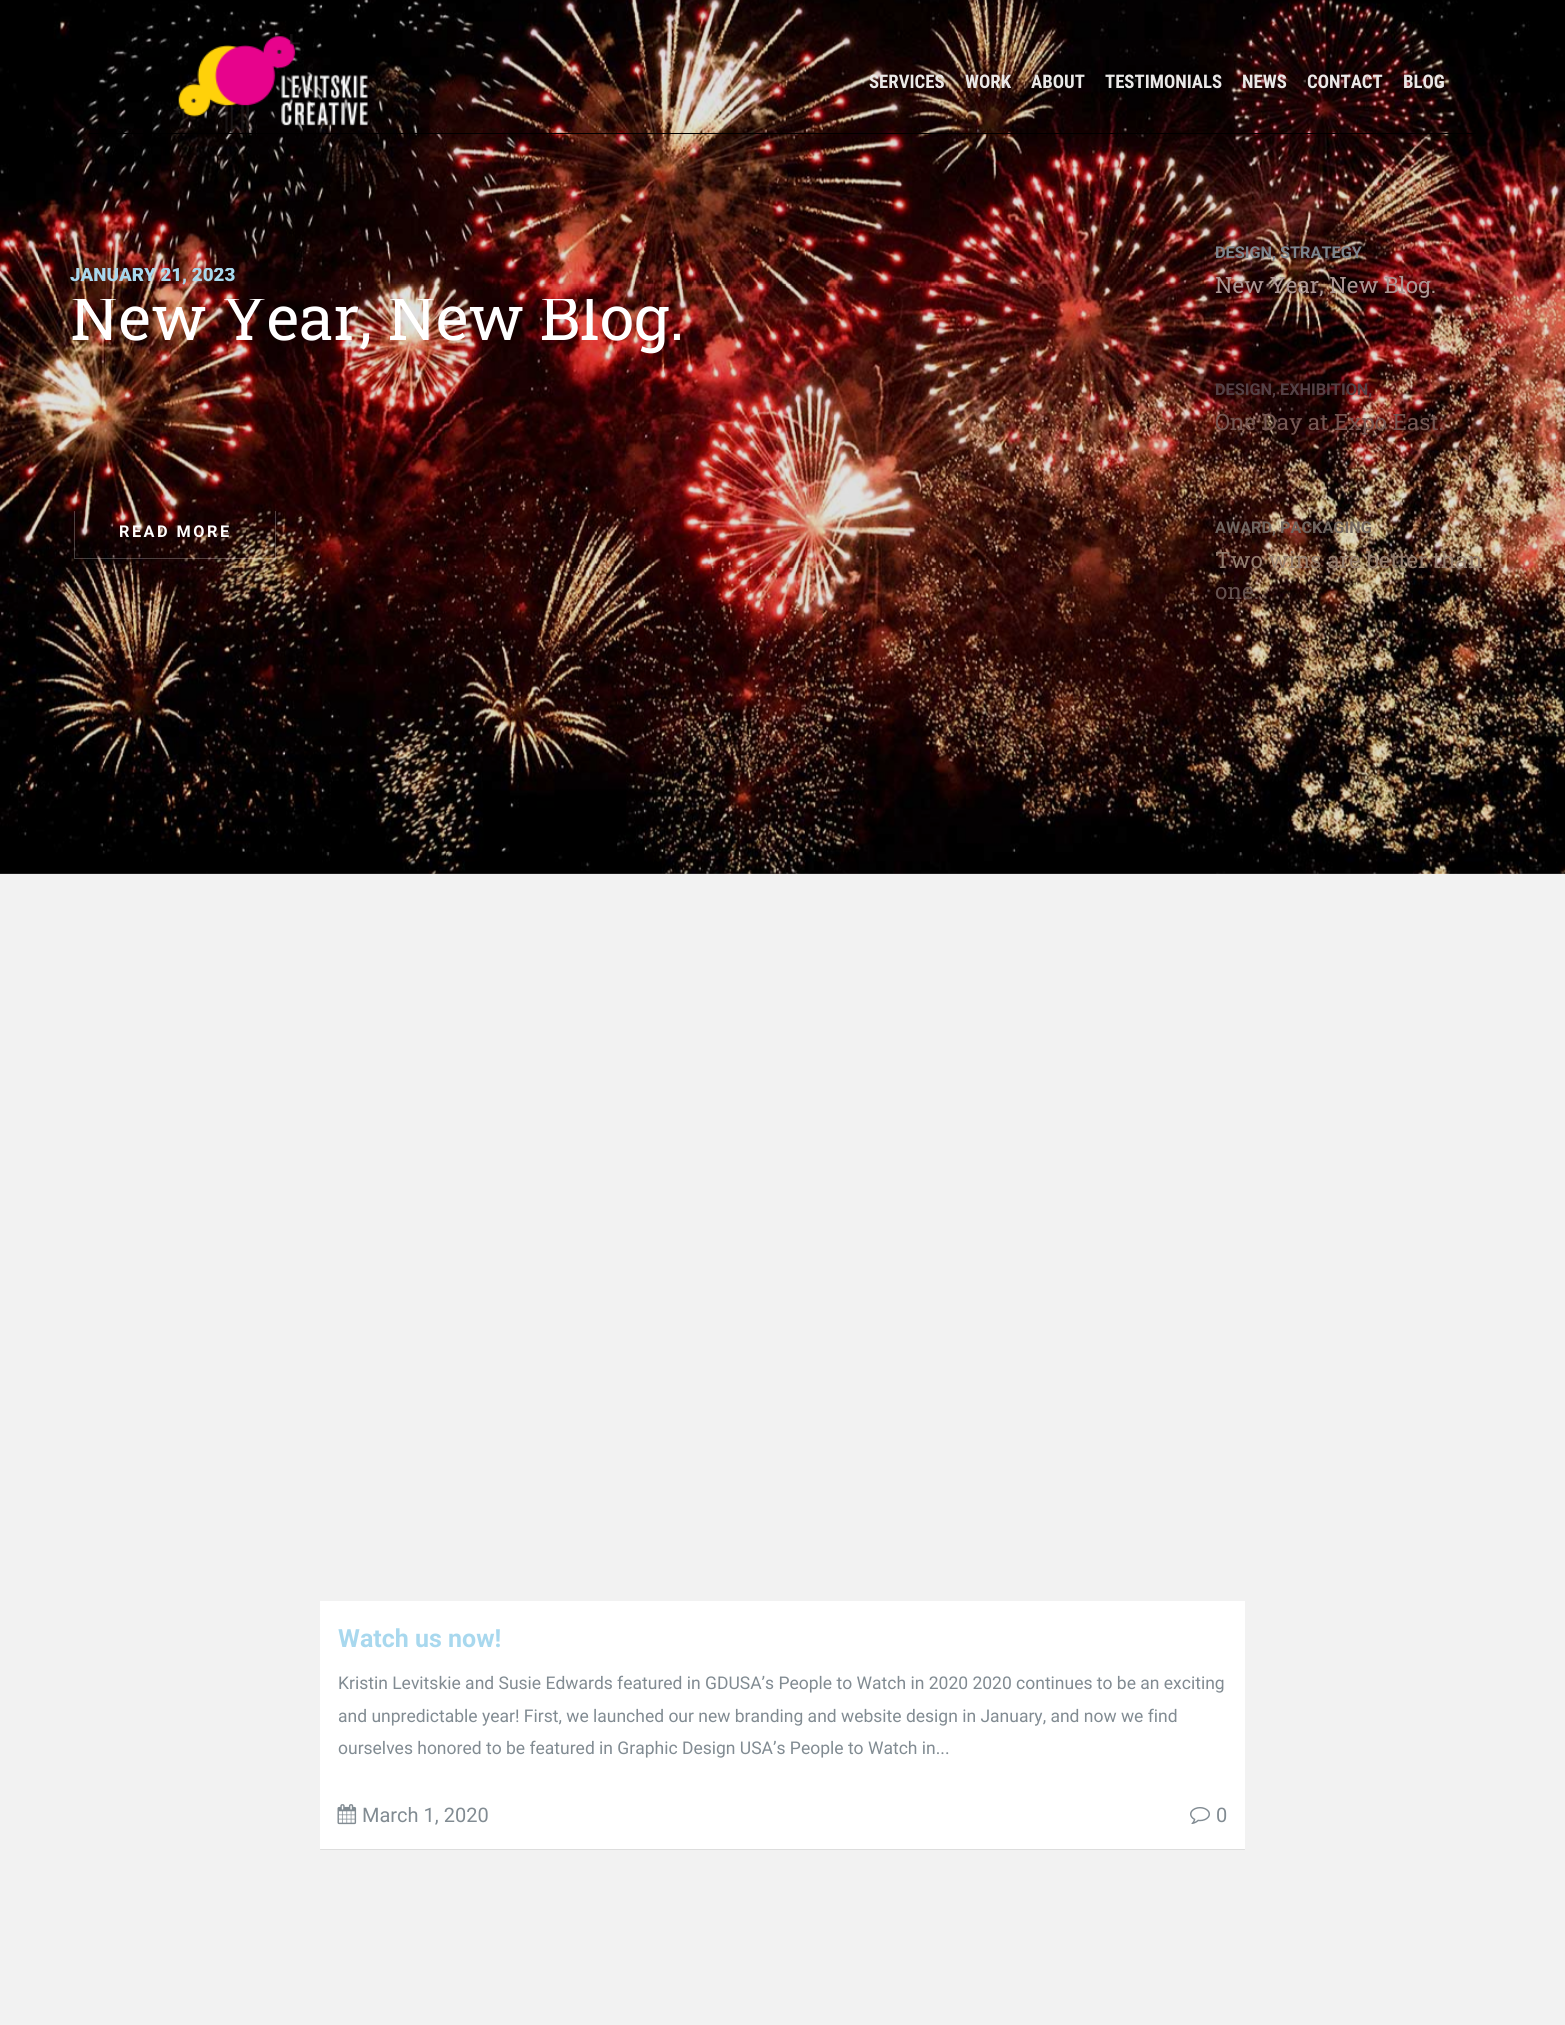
import math
import cairo



def draw_spaced(context, x, y, s, letter, word):
    context.move_to(x, y)
    for ch in s:
        context.show_text(ch)
        context.rel_move_to(letter + word * (ch == ' '), 0)


def rounded_rect(context, x, y, w, h, r):
    context.new_sub_path()
    for i, (u, v) in enumerate([(x + w - r, y + h - r), (x + r, y + h - r), (x + r, y + r), (x + w - r, y + r)]):
        context.arc(u, v, r, i * math.pi / 2, (i + 1) * math.pi / 2)
    context.close_path()


def draw_shadow(context, x, y, w, h, r, blur, alpha):
    context.push_group_with_content(cairo.Content.ALPHA)
    context.set_operator(cairo.Operator.SOURCE)
    for i in range(15, -16, -2):
        e = blur * i / 6
        if min(w, h) + 2 * e > 0:
            context.set_source_rgba(0, 0, 0, alpha * math.erfc((i - 1) / 8.5) / 2)
            rounded_rect(context, x - e, y - e, w + 2 * e, h + 2 * e, max(0, min(r + e + blur * .6, min(w, h) / 2 + e)))
            context.fill()
    context.mask(context.pop_group())


def draw_image(context, path, x, y, w, h):
    context.save()
    context.set_source_surface(cairo.ImageSurface.create_from_png(path), x, y)
    context.rectangle(x, y, w, h)
    context.fill()
    context.restore()


def draw(context):
    context.set_source_rgb(1, 1, 1)
    context.paint()
    draw_image(context, "images/2.png", 0, 0, 1565, 874)
    draw_image(context, "images/1.png", 173, 34, 195, 99)
    context.set_source_rgb(0, 0, 0)
    context.rectangle(89, 133, 1387, 1)
    context.fill()
    context.save()
    context.rectangle(74, 511, 202, 54)
    context.clip()
    context.rectangle(74.5, 505.5, 201, 53)
    context.set_source_rgba(1, 1, 1, 0.25)
    context.set_line_width(1)
    context.stroke()
    context.restore()
    context.set_source_rgb(242 / 255, 242 / 255, 242 / 255)
    context.rectangle(0, 874, 1565, 1151)
    context.fill()
    context.save()
    context.rectangle(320, 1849, 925, 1)
    context.clip()
    context.set_source_rgb(0, 0, 0)
    draw_shadow(context, 320, 988, 925, 862, 0, 0.5, 0.1)
    context.restore()
    context.set_source_rgb(1, 1, 1)
    context.rectangle(320, 1601, 925, 248)
    context.fill()
    draw_image(context, "images/3.png", 337, 1804, 20, 21)
    draw_image(context, "images/4.png", 1190, 1807, 20, 17)
    context.select_font_face("Roboto Condensed", cairo.FontSlant.NORMAL, cairo.FontWeight.BOLD)
    context.set_font_size(18.75)
    context.set_source_rgb(234 / 255, 232 / 255, 231 / 255)
    context.move_to(869, 88)
    context.show_text("SERVICES")
    context.move_to(965, 88)
    context.show_text("WORK")
    context.move_to(1031, 88)
    context.show_text("ABOUT")
    context.move_to(1105, 88)
    context.show_text("TESTIMONIALS")
    context.move_to(1242, 88)
    context.show_text("NEWS")
    context.move_to(1307, 88)
    context.show_text("CONTACT")
    context.move_to(1403, 88)
    context.show_text("BLOG")
    context.save()
    context.rectangle(70, 268, 165, 25)
    context.clip()
    context.select_font_face("Roboto Black")
    context.set_source_rgb(168 / 255, 216 / 255, 238 / 255)
    context.move_to(70, 281)
    context.show_text("JANUARY 21, 2023")
    context.restore()
    context.save()
    context.rectangle(70, 299, 750, 81)
    context.clip()
    context.select_font_face("Roboto Slab")
    context.set_font_size(62.5)
    context.set_source_rgb(1, 1, 1)
    context.move_to(70, 340)
    context.show_text("New Year, New Blog.")
    context.restore()
    context.select_font_face("Roboto", cairo.FontSlant.NORMAL, cairo.FontWeight.BOLD)
    context.set_font_size(16.25)
    context.set_source_rgb(1, 1, 1)
    draw_spaced(context, 119, 537, "READ MORE", 2.5, 0)
    context.set_source_rgb(124 / 255, 133 / 255, 142 / 255)
    context.move_to(1215, 258)
    context.show_text("DESIGN, STRATEGY")
    context.select_font_face("Roboto Slab")
    context.set_font_size(22.5)
    context.set_source_rgb(172 / 255, 150 / 255, 148 / 255)
    context.move_to(1215, 293)
    context.show_text("New Year, New Blog.")
    context.select_font_face("Roboto", cairo.FontSlant.NORMAL, cairo.FontWeight.BOLD)
    context.set_font_size(16.25)
    context.set_source_rgb(84 / 255, 65 / 255, 70 / 255)
    context.move_to(1215, 395)
    context.show_text("DESIGN, EXHIBITION,")
    context.select_font_face("Roboto Slab")
    context.set_font_size(22.5)
    context.set_source_rgb(117 / 255, 87 / 255, 83 / 255)
    context.move_to(1215, 430)
    context.show_text("One Day at Expo East.")
    context.select_font_face("Roboto", cairo.FontSlant.NORMAL, cairo.FontWeight.BOLD)
    context.set_font_size(16.25)
    context.set_source_rgb(112 / 255, 102 / 255, 97 / 255)
    context.move_to(1215, 533)
    context.show_text("AWARD, PACKAGING")
    context.select_font_face("Roboto Slab")
    context.set_font_size(22.5)
    context.set_source_rgb(147 / 255, 125 / 255, 111 / 255)
    context.move_to(1215, 568)
    context.show_text("Two wins are better than")
    context.set_source_rgb(100 / 255, 81 / 255, 79 / 255)
    context.move_to(1215, 599)
    context.show_text("one.")
    context.select_font_face("Roboto", cairo.FontSlant.NORMAL, cairo.FontWeight.BOLD)
    context.set_font_size(25)
    context.set_source_rgb(168 / 255, 216 / 255, 238 / 255)
    context.move_to(338, 1647)
    context.show_text("Watch us now!")
    context.select_font_face("Roboto")
    context.set_font_size(17.5)
    context.set_source_rgb(129 / 255, 139 / 255, 146 / 255)
    context.move_to(338, 1689)
    context.show_text("Kristin Levitskie and Susie Edwards featured in GDUSA’s People to Watch in 2020 2020 continues to be an exciting")
    context.move_to(338, 1722)
    context.show_text("and unpredictable year! First, we launched our new branding and website design in January, and now we find")
    context.move_to(338, 1754)
    context.show_text("ourselves honored to be featured in Graphic Design USA’s People to Watch in...")
    context.set_font_size(20)
    context.move_to(362, 1822)
    context.show_text("March 1, 2020")
    context.move_to(1216, 1822)
    context.show_text("0")


surface = cairo.ImageSurface(cairo.Format.RGB24, 1565, 2025)
context = cairo.Context(surface)
options = cairo.FontOptions()
options.set_hint_metrics(cairo.HintMetrics.OFF)
options.set_hint_style(cairo.HintStyle.NONE)
context.set_font_options(options)
context.set_miter_limit(4)
draw(context)
surface.write_to_png("out.png")
